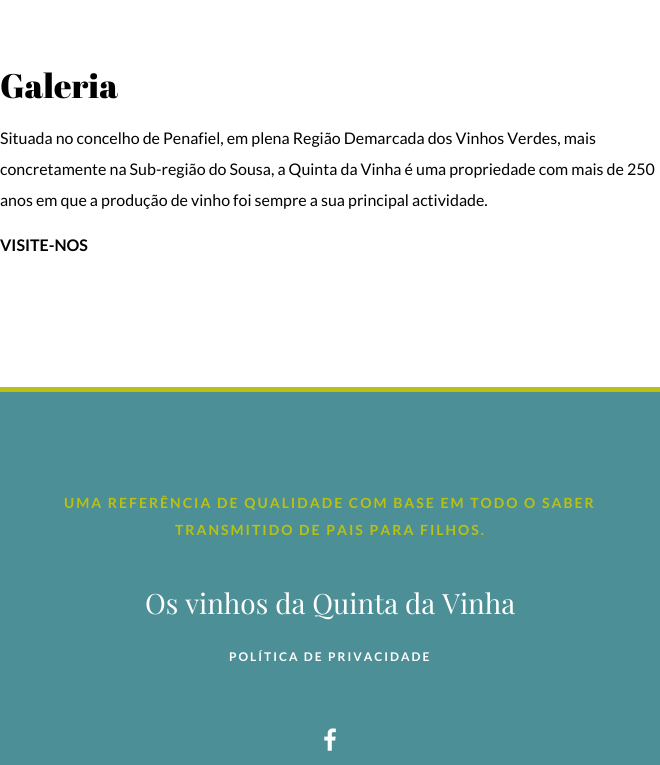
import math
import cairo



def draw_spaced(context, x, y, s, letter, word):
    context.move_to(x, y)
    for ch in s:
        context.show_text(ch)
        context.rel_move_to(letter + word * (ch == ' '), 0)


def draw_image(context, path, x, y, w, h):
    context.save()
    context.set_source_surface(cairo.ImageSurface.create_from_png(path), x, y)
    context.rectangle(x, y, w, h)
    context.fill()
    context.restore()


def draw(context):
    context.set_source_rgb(1, 1, 1)
    context.paint()
    context.set_source_rgb(76 / 255, 143 / 255, 150 / 255)
    context.rectangle(0, 392, 660, 373)
    context.fill()
    context.set_source_rgb(186 / 255, 193 / 255, 16 / 255)
    context.rectangle(0, 387, 660, 5)
    context.fill()
    draw_image(context, "images/1.png", 324, 728, 12, 23)
    context.select_font_face("Abril Fatface")
    context.set_font_size(34)
    context.set_source_rgb(0, 0, 0)
    context.move_to(0, 98)
    context.show_text("Galeria")
    context.select_font_face("Lato")
    context.set_font_size(16)
    context.move_to(0, 144)
    context.show_text("Situada no concelho de Penafiel, em plena Região Demarcada dos Vinhos Verdes, mais")
    context.move_to(0, 175)
    context.show_text("concretamente na Sub-região do Sousa, a Quinta da Vinha é uma propriedade com mais de 250")
    context.move_to(0, 206)
    context.show_text("anos em que a produção de vinho foi sempre a sua principal actividade.")
    context.select_font_face("Lato", cairo.FontSlant.NORMAL, cairo.FontWeight.BOLD)
    context.move_to(0, 251)
    context.show_text("VISITE-NOS")
    context.set_font_size(14)
    context.set_source_rgb(186 / 255, 193 / 255, 16 / 255)
    draw_spaced(context, 64, 508, "UMA REFERÊNCIA DE QUALIDADE COM BASE EM TODO O SABER", 2, 0)
    draw_spaced(context, 175, 535, "TRANSMITIDO DE PAIS PARA FILHOS.", 2, 0)
    context.select_font_face("Playfair Display")
    context.set_font_size(28)
    context.set_source_rgb(1, 1, 1)
    context.move_to(145, 614)
    context.show_text("Os vinhos da Quinta da Vinha")
    context.select_font_face("Lato", cairo.FontSlant.NORMAL, cairo.FontWeight.BOLD)
    context.set_font_size(12)
    draw_spaced(context, 229, 661, "POLÍTICA DE PRIVACIDADE", 2, 0)


surface = cairo.ImageSurface(cairo.Format.RGB24, 660, 765)
context = cairo.Context(surface)
options = cairo.FontOptions()
options.set_hint_metrics(cairo.HintMetrics.OFF)
options.set_hint_style(cairo.HintStyle.NONE)
context.set_font_options(options)
context.set_miter_limit(4)
draw(context)
surface.write_to_png("out.png")
